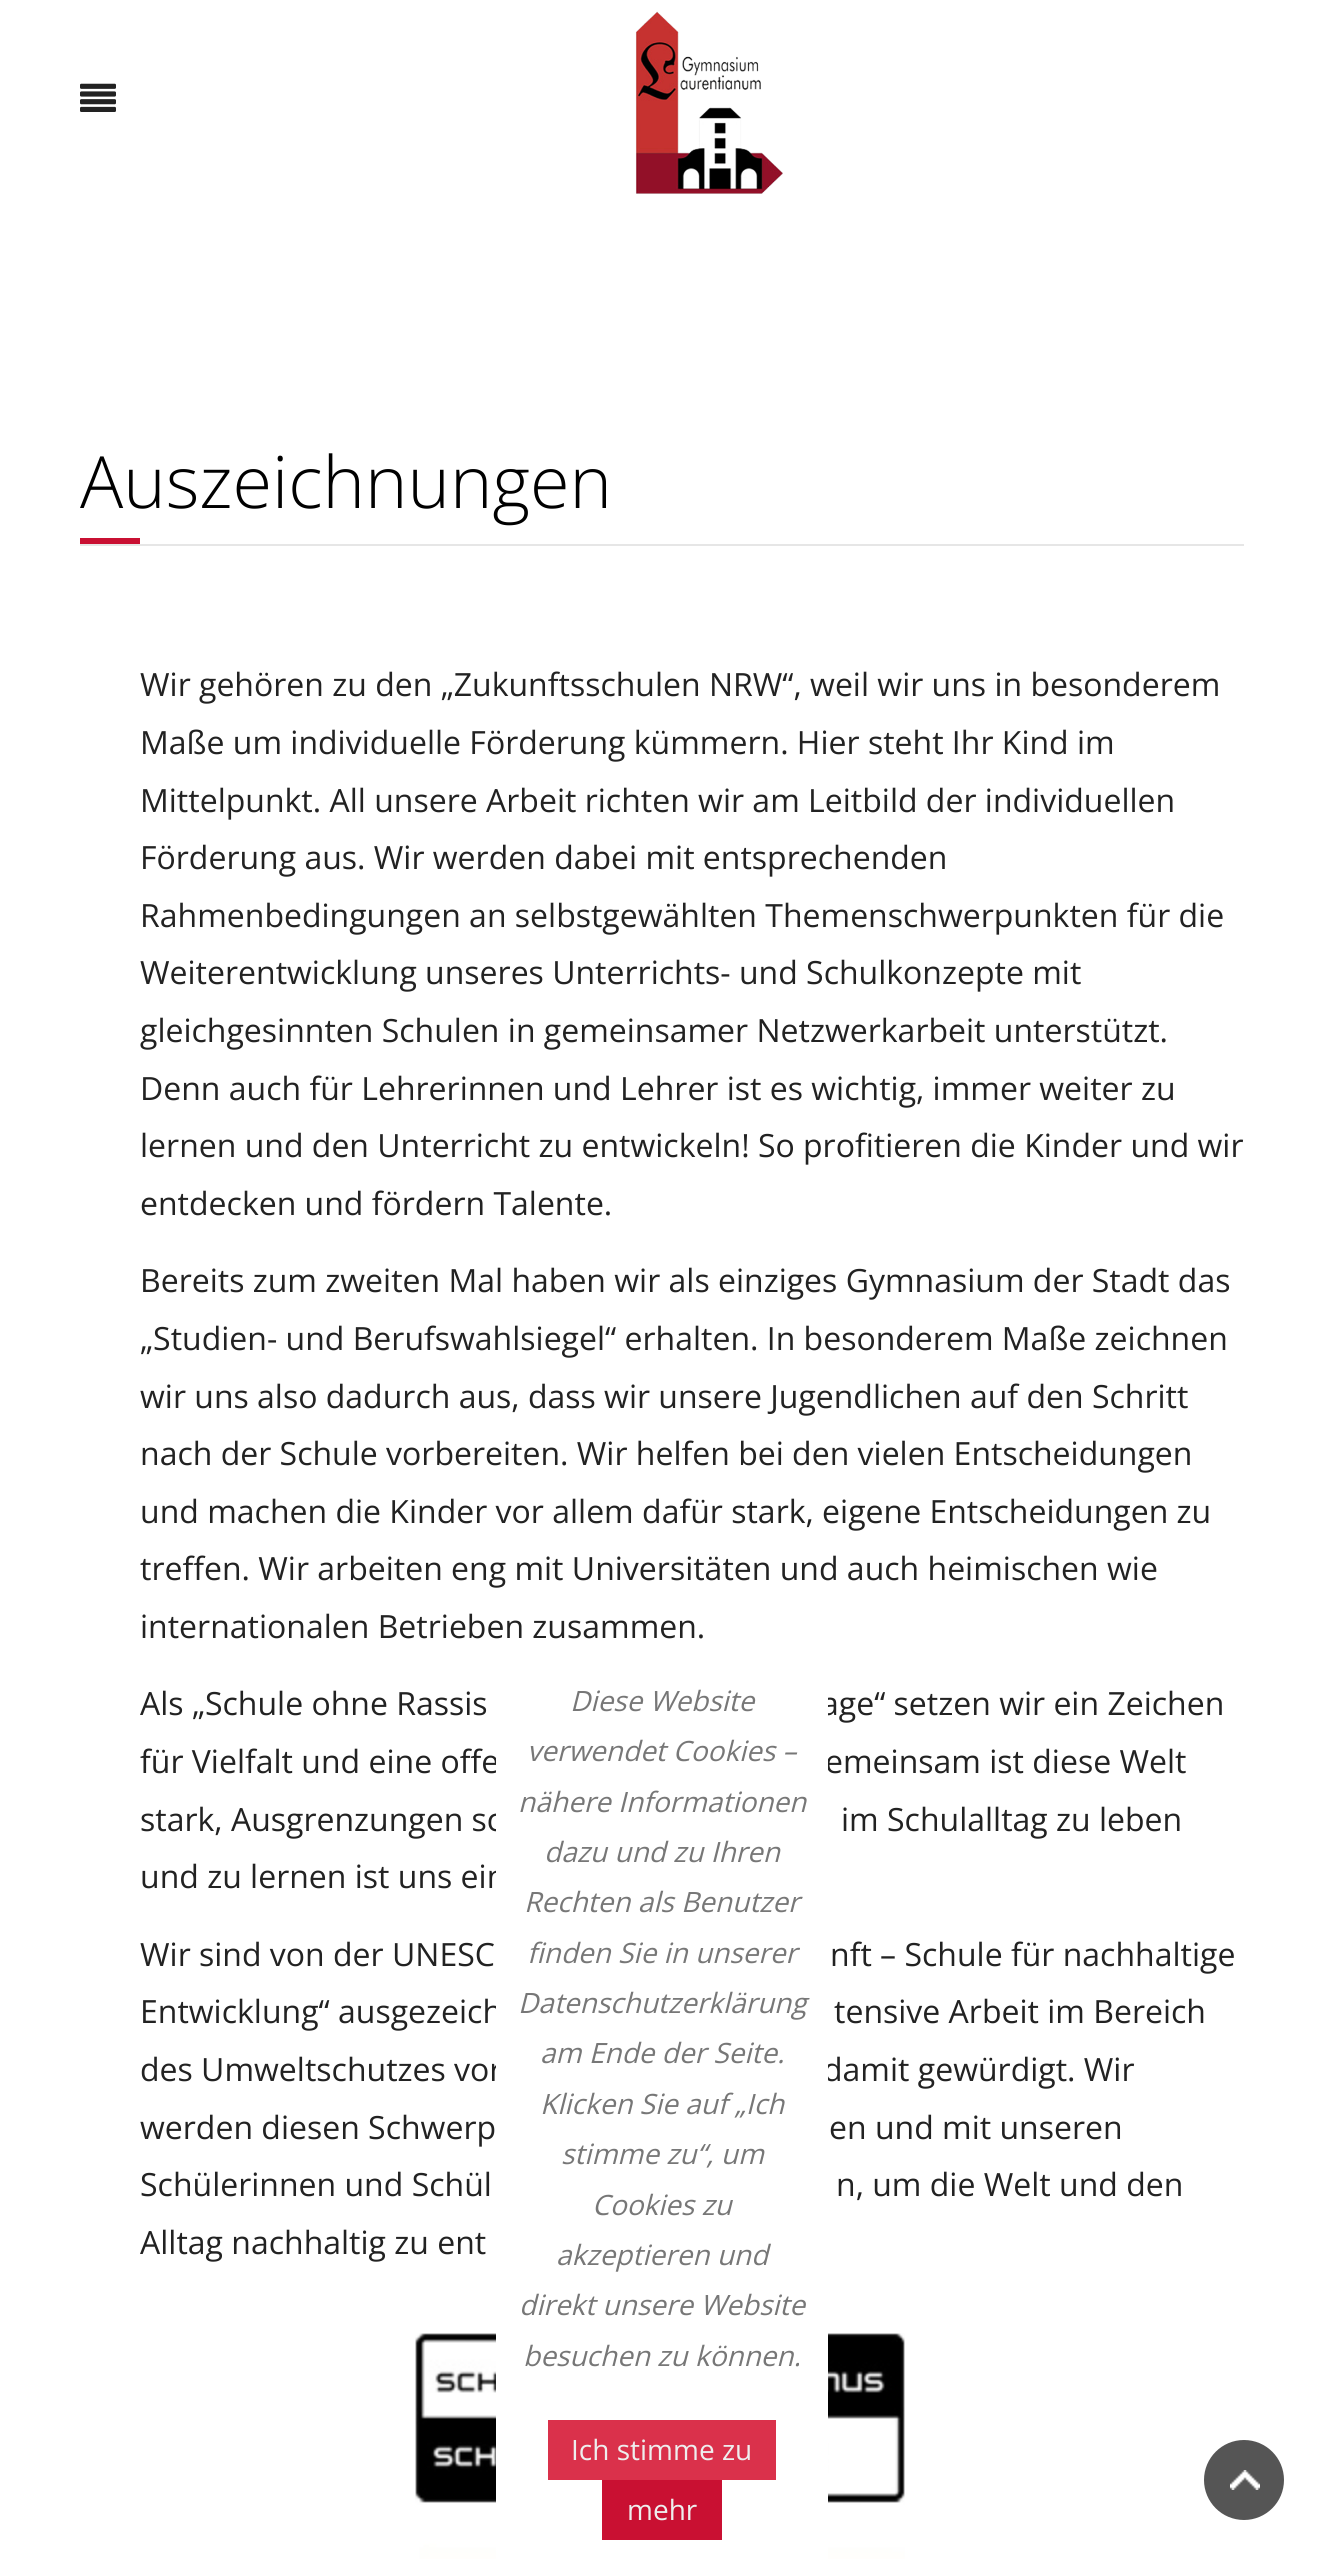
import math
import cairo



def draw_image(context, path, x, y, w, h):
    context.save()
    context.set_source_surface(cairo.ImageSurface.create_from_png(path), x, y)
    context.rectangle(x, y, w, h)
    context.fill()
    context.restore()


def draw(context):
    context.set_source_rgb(1, 1, 1)
    context.paint()
    draw_image(context, "images/1.png", 80, 83, 36, 29)
    draw_image(context, "images/2.png", 635, 11, 148, 183)
    context.set_source_rgb(230 / 255, 230 / 255, 230 / 255)
    context.rectangle(80, 544, 1164, 2)
    context.fill()
    context.set_source_rgb(201 / 255, 16 / 255, 50 / 255)
    context.rectangle(80, 538, 60, 6)
    context.fill()
    draw_image(context, "images/3.png", 415, 2333, 490, 226)
    context.set_source_rgb(85 / 255, 85 / 255, 85 / 255)
    context.arc(1244, 2480, 40, 0, 2 * math.pi)
    context.fill()
    draw_image(context, "images/4.png", 1230, 2470, 30, 20)
    context.select_font_face("Open Sans Light")
    context.set_font_size(72)
    context.set_source_rgb(0, 0, 0)
    context.move_to(80, 508)
    context.show_text("Auszeichnungen")
    context.select_font_face("Open Sans")
    context.set_font_size(32)
    context.set_source_rgb(34 / 255, 34 / 255, 34 / 255)
    context.move_to(140, 696)
    context.show_text("Wir gehören zu den „Zukunftsschulen NRW“, weil wir uns in besonderem")
    context.move_to(140, 754)
    context.show_text("Maße um individuelle Förderung kümmern. Hier steht Ihr Kind im")
    context.move_to(140, 812)
    context.show_text("Mittelpunkt. All unsere Arbeit richten wir am Leitbild der individuellen")
    context.move_to(140, 869)
    context.show_text("Förderung aus. Wir werden dabei mit entsprechenden")
    context.move_to(140, 927)
    context.show_text("Rahmenbedingungen an selbstgewählten Themenschwerpunkten für die")
    context.move_to(140, 984)
    context.show_text("Weiterentwicklung unseres Unterrichts- und Schulkonzepte mit")
    context.move_to(140, 1042)
    context.show_text("gleichgesinnten Schulen in gemeinsamer Netzwerkarbeit unterstützt.")
    context.move_to(140, 1100)
    context.show_text("Denn auch für Lehrerinnen und Lehrer ist es wichtig, immer weiter zu")
    context.move_to(140, 1157)
    context.show_text("lernen und den Unterricht zu entwickeln! So profitieren die Kinder und wir")
    context.move_to(140, 1215)
    context.show_text("entdecken und fördern Talente.")
    context.move_to(140, 1292)
    context.show_text("Bereits zum zweiten Mal haben wir als einziges Gymnasium der Stadt das")
    context.move_to(140, 1350)
    context.show_text("„Studien- und Berufswahlsiegel“ erhalten. In besonderem Maße zeichnen")
    context.move_to(140, 1408)
    context.show_text("wir uns also dadurch aus, dass wir unsere Jugendlichen auf den Schritt")
    context.move_to(140, 1465)
    context.show_text("nach der Schule vorbereiten. Wir helfen bei den vielen Entscheidungen")
    context.move_to(140, 1523)
    context.show_text("und machen die Kinder vor allem dafür stark, eigene Entscheidungen zu")
    context.move_to(140, 1580)
    context.show_text("treffen. Wir arbeiten eng mit Universitäten und auch heimischen wie")
    context.move_to(140, 1638)
    context.show_text("internationalen Betrieben zusammen.")
    context.move_to(140, 1715)
    context.show_text("Als „Schule ohne Rassis")
    context.move_to(821, 1715)
    context.show_text("age“ setzen wir ein Zeichen")
    context.move_to(140, 1773)
    context.show_text("für Vielfalt und eine offe")
    context.move_to(825, 1773)
    context.show_text("emeinsam ist diese Welt")
    context.move_to(140, 1831)
    context.show_text("stark, Ausgrenzungen sc")
    context.move_to(841, 1831)
    context.show_text("im Schulalltag zu leben")
    context.move_to(140, 1888)
    context.show_text("und zu lernen ist uns ein")
    context.move_to(140, 1966)
    context.show_text("Wir sind von der UNESC")
    context.move_to(830, 1966)
    context.show_text("nft – Schule für nachhaltige")
    context.move_to(140, 2023)
    context.show_text("Entwicklung“ ausgezeich")
    context.move_to(834, 2023)
    context.show_text("tensive Arbeit im Bereich")
    context.move_to(140, 2081)
    context.show_text("des Umweltschutzes vor")
    context.move_to(823, 2081)
    context.show_text("damit gewürdigt. Wir")
    context.move_to(140, 2139)
    context.show_text("werden diesen Schwerp")
    context.move_to(829, 2139)
    context.show_text("en und mit unseren")
    context.move_to(140, 2196)
    context.show_text("Schülerinnen und Schül")
    context.move_to(836, 2196)
    context.show_text("n, um die Welt und den")
    context.move_to(140, 2254)
    context.show_text("Alltag nachhaltig zu ent")
    context.set_source_rgb(1, 1, 1)
    context.rectangle(496, 1697, 332, 862)
    context.fill()
    context.select_font_face("Open Sans", cairo.FontSlant.ITALIC)
    context.set_font_size(28)
    context.set_source_rgb(119 / 255, 119 / 255, 119 / 255)
    context.move_to(570, 1711)
    context.show_text("Diese Website")
    context.move_to(527, 1761)
    context.show_text("verwendet Cookies –")
    context.move_to(518, 1812)
    context.show_text("nähere Informationen")
    context.move_to(544, 1862)
    context.show_text("dazu und zu Ihren")
    context.move_to(524, 1912)
    context.show_text("Rechten als Benutzer")
    context.move_to(527, 1963)
    context.show_text("finden Sie in unserer")
    context.move_to(518, 2013)
    context.show_text("Datenschutzerklärung")
    context.move_to(540, 2063)
    context.show_text("am Ende der Seite.")
    context.move_to(540, 2114)
    context.show_text("Klicken Sie auf „Ich")
    context.move_to(561, 2164)
    context.show_text("stimme zu“, um")
    context.move_to(592, 2215)
    context.show_text("Cookies zu")
    context.move_to(556, 2265)
    context.show_text("akzeptieren und")
    context.move_to(519, 2315)
    context.show_text("direkt unsere Website")
    context.move_to(523, 2366)
    context.show_text("besuchen zu können.")
    context.set_source_rgb(218 / 255, 49 / 255, 75 / 255)
    context.rectangle(548, 2420, 228, 60)
    context.fill()
    context.select_font_face("Open Sans")
    context.set_source_rgb(238 / 255, 238 / 255, 238 / 255)
    context.move_to(571, 2460)
    context.show_text("Ich stimme zu")
    context.set_source_rgb(201 / 255, 16 / 255, 50 / 255)
    context.rectangle(602, 2480, 120, 60)
    context.fill()
    context.set_source_rgb(238 / 255, 238 / 255, 238 / 255)
    context.move_to(627, 2520)
    context.show_text("mehr")


surface = cairo.ImageSurface(cairo.Format.RGB24, 1323, 2559)
context = cairo.Context(surface)
options = cairo.FontOptions()
options.set_hint_metrics(cairo.HintMetrics.OFF)
options.set_hint_style(cairo.HintStyle.NONE)
context.set_font_options(options)
context.set_miter_limit(4)
draw(context)
surface.write_to_png("out.png")
